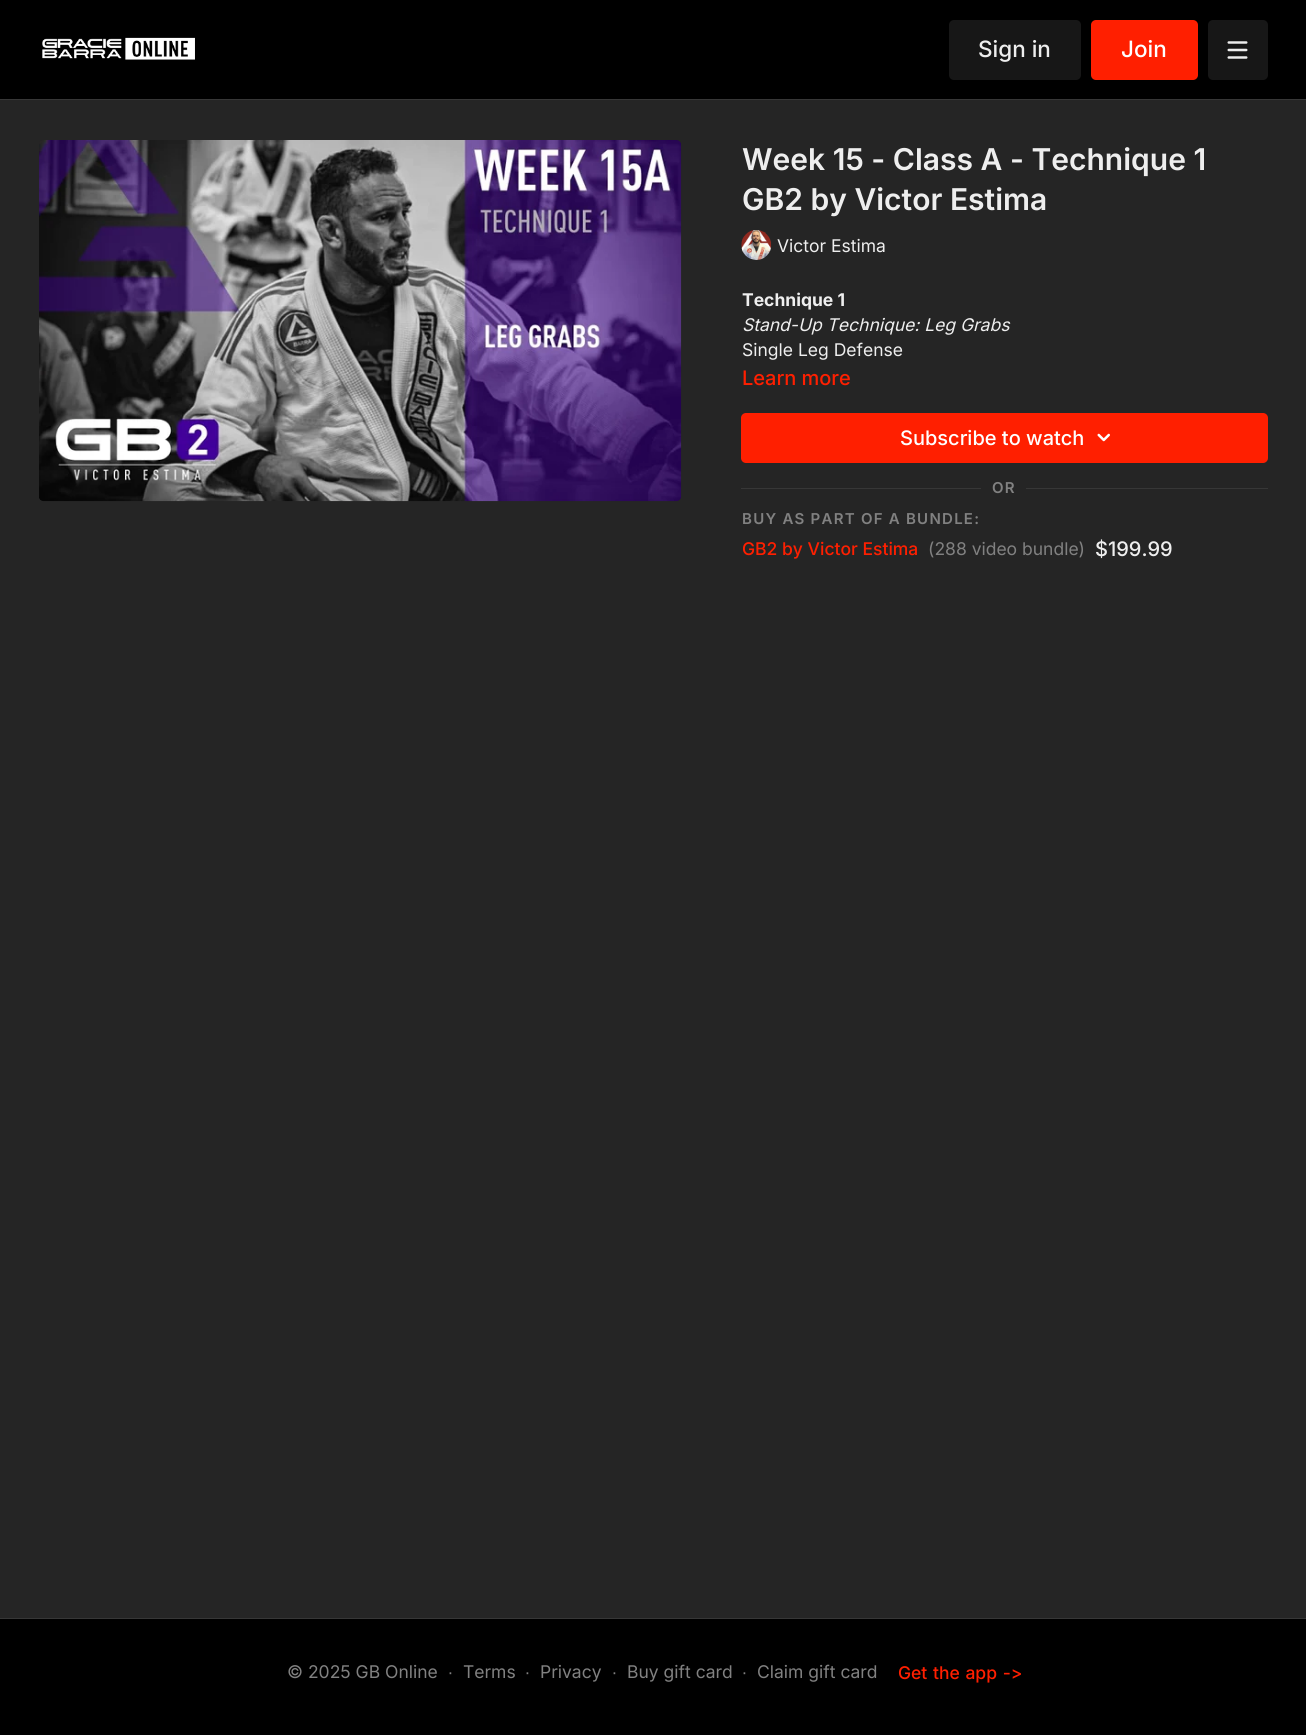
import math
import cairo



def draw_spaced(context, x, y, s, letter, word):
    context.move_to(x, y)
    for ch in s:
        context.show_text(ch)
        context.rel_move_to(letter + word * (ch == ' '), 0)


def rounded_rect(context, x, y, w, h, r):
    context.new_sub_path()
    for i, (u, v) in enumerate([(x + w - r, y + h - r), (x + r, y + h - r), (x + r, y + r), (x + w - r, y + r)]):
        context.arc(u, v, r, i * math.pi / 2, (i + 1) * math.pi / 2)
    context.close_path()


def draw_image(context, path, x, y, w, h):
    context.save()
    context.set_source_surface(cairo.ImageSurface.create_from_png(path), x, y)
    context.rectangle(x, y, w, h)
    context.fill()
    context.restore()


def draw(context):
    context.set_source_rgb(37 / 255, 37 / 255, 37 / 255)
    context.paint()
    context.set_source_rgb(0, 0, 0)
    context.rectangle(0, 0, 1306, 99)
    context.fill()
    context.set_source_rgb(55 / 255, 55 / 255, 55 / 255)
    context.rectangle(0, 99, 1306, 1)
    context.fill()
    draw_image(context, "images/1.png", 42, 37, 153, 23)
    context.set_source_rgb(23 / 255, 23 / 255, 23 / 255)
    rounded_rect(context, 949, 20, 132, 60, 5)
    context.fill()
    context.set_source_rgb(1, 31 / 255, 0)
    rounded_rect(context, 1091, 20, 107, 60, 5)
    context.fill()
    context.set_source_rgb(23 / 255, 23 / 255, 23 / 255)
    rounded_rect(context, 1208, 20, 60, 60, 5)
    context.fill()
    draw_image(context, "images/2.png", 1227, 41, 21, 18)
    draw_image(context, "images/3.png", 39, 140, 643, 362)
    draw_image(context, "images/4.png", 741, 230, 31, 30)
    context.set_source_rgb(1, 31 / 255, 0)
    rounded_rect(context, 741, 413, 527, 50, 5)
    context.fill()
    draw_image(context, "images/5.png", 1097, 433, 13, 9)
    context.set_source_rgb(55 / 255, 55 / 255, 55 / 255)
    context.rectangle(741, 488, 527, 1)
    context.fill()
    context.set_source_rgb(37 / 255, 37 / 255, 37 / 255)
    context.rectangle(981, 488, 45, 1)
    context.fill()
    context.set_source_rgb(0, 0, 0)
    context.rectangle(0, 1619, 1306, 116)
    context.fill()
    context.set_source_rgb(55 / 255, 55 / 255, 55 / 255)
    context.rectangle(0, 1618, 1306, 1)
    context.fill()
    context.select_font_face("Inter Medium")
    context.set_font_size(22.5)
    context.set_source_rgb(238 / 255, 238 / 255, 238 / 255)
    context.move_to(978, 57)
    context.show_text("Sign in")
    context.set_source_rgb(1, 1, 1)
    context.move_to(1121, 57)
    context.show_text("Join")
    context.select_font_face("Inter SemiBold")
    context.set_font_size(30)
    context.set_source_rgb(238 / 255, 238 / 255, 238 / 255)
    context.move_to(742, 170)
    context.show_text("Week 15 - Class A - Technique 1")
    context.move_to(742, 210)
    context.show_text("GB2 by Victor Estima")
    context.select_font_face("Inter")
    context.set_font_size(17.5)
    context.move_to(777, 252)
    context.show_text("Victor Estima")
    context.select_font_face("Inter", cairo.FontSlant.NORMAL, cairo.FontWeight.BOLD)
    context.move_to(742, 306)
    context.show_text("Technique 1")
    context.select_font_face("Inter", cairo.FontSlant.ITALIC)
    context.move_to(742, 331)
    context.show_text("Stand-Up Technique: Leg Grabs")
    context.select_font_face("Inter")
    context.move_to(742, 356)
    context.show_text("Single Leg Defense")
    context.select_font_face("Inter Medium")
    context.set_font_size(20)
    context.set_source_rgb(1, 31 / 255, 0)
    context.move_to(742, 385)
    context.show_text("Learn more")
    context.set_source_rgb(1, 1, 1)
    context.move_to(900, 445)
    context.show_text("Subscribe to watch")
    context.select_font_face("Inter SemiBold")
    context.set_font_size(15)
    context.set_source_rgb(129 / 255, 129 / 255, 129 / 255)
    draw_spaced(context, 992, 493, "OR", 1.25, 0)
    draw_spaced(context, 742, 524, "BUY AS PART OF A BUNDLE:", 1.25, 0)
    context.select_font_face("Inter Medium")
    context.set_font_size(17.5)
    context.set_source_rgb(1, 31 / 255, 0)
    context.move_to(742, 555)
    context.show_text("GB2 by Victor Estima")
    context.select_font_face("Inter")
    context.set_source_rgb(129 / 255, 129 / 255, 129 / 255)
    context.move_to(928, 555)
    context.show_text("(288 video bundle)")
    context.select_font_face("Inter Medium")
    context.set_font_size(20)
    context.set_source_rgb(238 / 255, 238 / 255, 238 / 255)
    context.move_to(1095, 556)
    context.show_text("$199.99")
    context.select_font_face("Inter")
    context.set_font_size(17.5)
    context.set_source_rgb(129 / 255, 129 / 255, 129 / 255)
    context.move_to(287, 1678)
    context.show_text("© 2025 GB Online")
    context.select_font_face("Liberation Sans")
    context.move_to(448, 1678)
    context.show_text("∙")
    context.select_font_face("Inter")
    context.move_to(463, 1678)
    context.show_text("Terms")
    context.select_font_face("Liberation Sans")
    context.move_to(525, 1678)
    context.show_text("∙")
    context.select_font_face("Inter")
    context.move_to(540, 1678)
    context.show_text("Privacy")
    context.select_font_face("Liberation Sans")
    context.move_to(612, 1678)
    context.show_text("∙")
    context.select_font_face("Inter")
    context.move_to(627, 1678)
    context.show_text("Buy gift card")
    context.select_font_face("Liberation Sans")
    context.move_to(742, 1678)
    context.show_text("∙")
    context.select_font_face("Inter")
    context.move_to(757, 1678)
    context.show_text("Claim gift card")
    context.select_font_face("Inter Medium")
    context.set_source_rgb(1, 31 / 255, 0)
    draw_spaced(context, 898, 1679, "Get the app ->", 0, 1)


surface = cairo.ImageSurface(cairo.Format.RGB24, 1306, 1735)
context = cairo.Context(surface)
options = cairo.FontOptions()
options.set_hint_metrics(cairo.HintMetrics.OFF)
options.set_hint_style(cairo.HintStyle.NONE)
context.set_font_options(options)
context.set_miter_limit(4)
draw(context)
surface.write_to_png("out.png")
